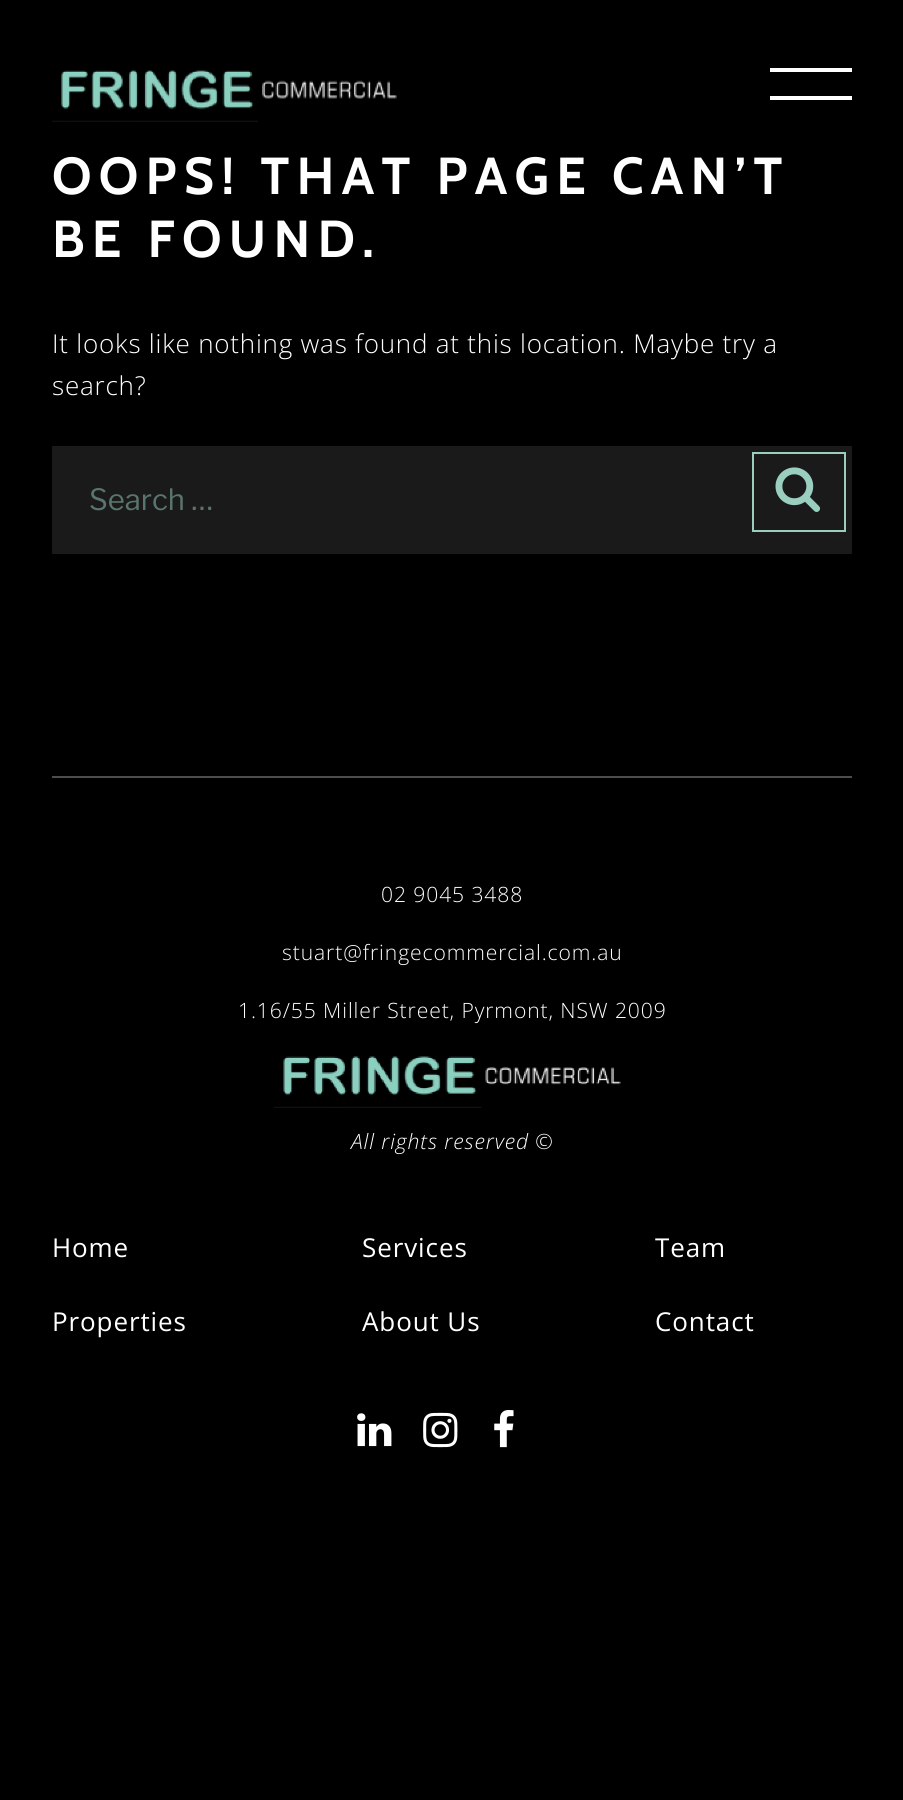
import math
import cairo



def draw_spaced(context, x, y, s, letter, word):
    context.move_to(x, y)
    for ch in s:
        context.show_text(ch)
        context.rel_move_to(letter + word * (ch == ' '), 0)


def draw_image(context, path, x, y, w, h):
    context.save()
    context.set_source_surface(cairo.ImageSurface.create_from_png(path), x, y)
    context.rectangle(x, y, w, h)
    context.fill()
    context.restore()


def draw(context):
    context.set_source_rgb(0, 0, 0)
    context.paint()
    draw_image(context, "images/1.png", 52, 70, 345, 52)
    context.set_source_rgb(1, 1, 1)
    context.rectangle(770, 68, 82, 4)
    context.fill()
    context.rectangle(770, 96, 82, 4)
    context.fill()
    context.set_source_rgb(26 / 255, 26 / 255, 26 / 255)
    context.rectangle(52, 446, 800, 108)
    context.fill()
    context.rectangle(753, 453, 92, 78)
    context.set_source_rgb(154 / 255, 207 / 255, 192 / 255)
    context.stroke()
    draw_image(context, "images/2.png", 775, 467, 46, 45)
    context.set_source_rgb(77 / 255, 77 / 255, 77 / 255)
    context.rectangle(52, 776, 800, 2)
    context.fill()
    draw_image(context, "images/3.png", 274, 1056, 347, 52)
    draw_image(context, "images/4.png", 357, 1413, 35, 34)
    draw_image(context, "images/5.png", 423, 1412, 35, 36)
    draw_image(context, "images/6.png", 494, 1410, 20, 38)
    context.select_font_face("Cabin", cairo.FontSlant.NORMAL, cairo.FontWeight.BOLD)
    context.set_font_size(52)
    context.set_source_rgb(1, 1, 1)
    draw_spaced(context, 52, 194, "OOPS! THAT PAGE CAN’T", 7.25, 0)
    draw_spaced(context, 52, 257, "BE FOUND.", 7.25, 0)
    context.select_font_face("Open Sans Light")
    context.set_font_size(26)
    draw_spaced(context, 52, 353, "It looks like nothing was found at this location. Maybe try a", 0.78, 0)
    draw_spaced(context, 52, 395, "search?", 0.78, 0)
    context.select_font_face("Libre Franklin")
    context.set_font_size(29.25)
    context.set_source_rgb(90 / 255, 117 / 255, 109 / 255)
    context.move_to(89, 510)
    context.show_text("Search …")
    context.select_font_face("Open Sans Light")
    context.set_font_size(21.1)
    context.set_source_rgb(1, 1, 1)
    draw_spaced(context, 381, 902, "02 9045 3488", 0.9, 0)
    draw_spaced(context, 282, 960, "stuart@fringecommercial.com.au", 0.9, 0)
    draw_spaced(context, 238, 1018, "1.16/55 Miller Street, Pyrmont, NSW 2009", 0.9, 0)
    context.select_font_face("Open Sans Light", cairo.FontSlant.ITALIC)
    draw_spaced(context, 351, 1149, "All rights reserved ©", 0.9, 0)
    context.select_font_face("Open Sans")
    context.set_font_size(26)
    draw_spaced(context, 52, 1257, "Home", 0.9, 0)
    draw_spaced(context, 362, 1257, "Services", 0.9, 0)
    draw_spaced(context, 655, 1257, "Team", 0.9, 0)
    draw_spaced(context, 52, 1331, "Properties", 0.9, 0)
    draw_spaced(context, 362, 1331, "About Us", 0.9, 0)
    draw_spaced(context, 655, 1331, "Contact", 0.9, 0)


surface = cairo.ImageSurface(cairo.Format.RGB24, 903, 1800)
context = cairo.Context(surface)
options = cairo.FontOptions()
options.set_hint_metrics(cairo.HintMetrics.OFF)
options.set_hint_style(cairo.HintStyle.NONE)
context.set_font_options(options)
context.set_miter_limit(4)
draw(context)
surface.write_to_png("out.png")
